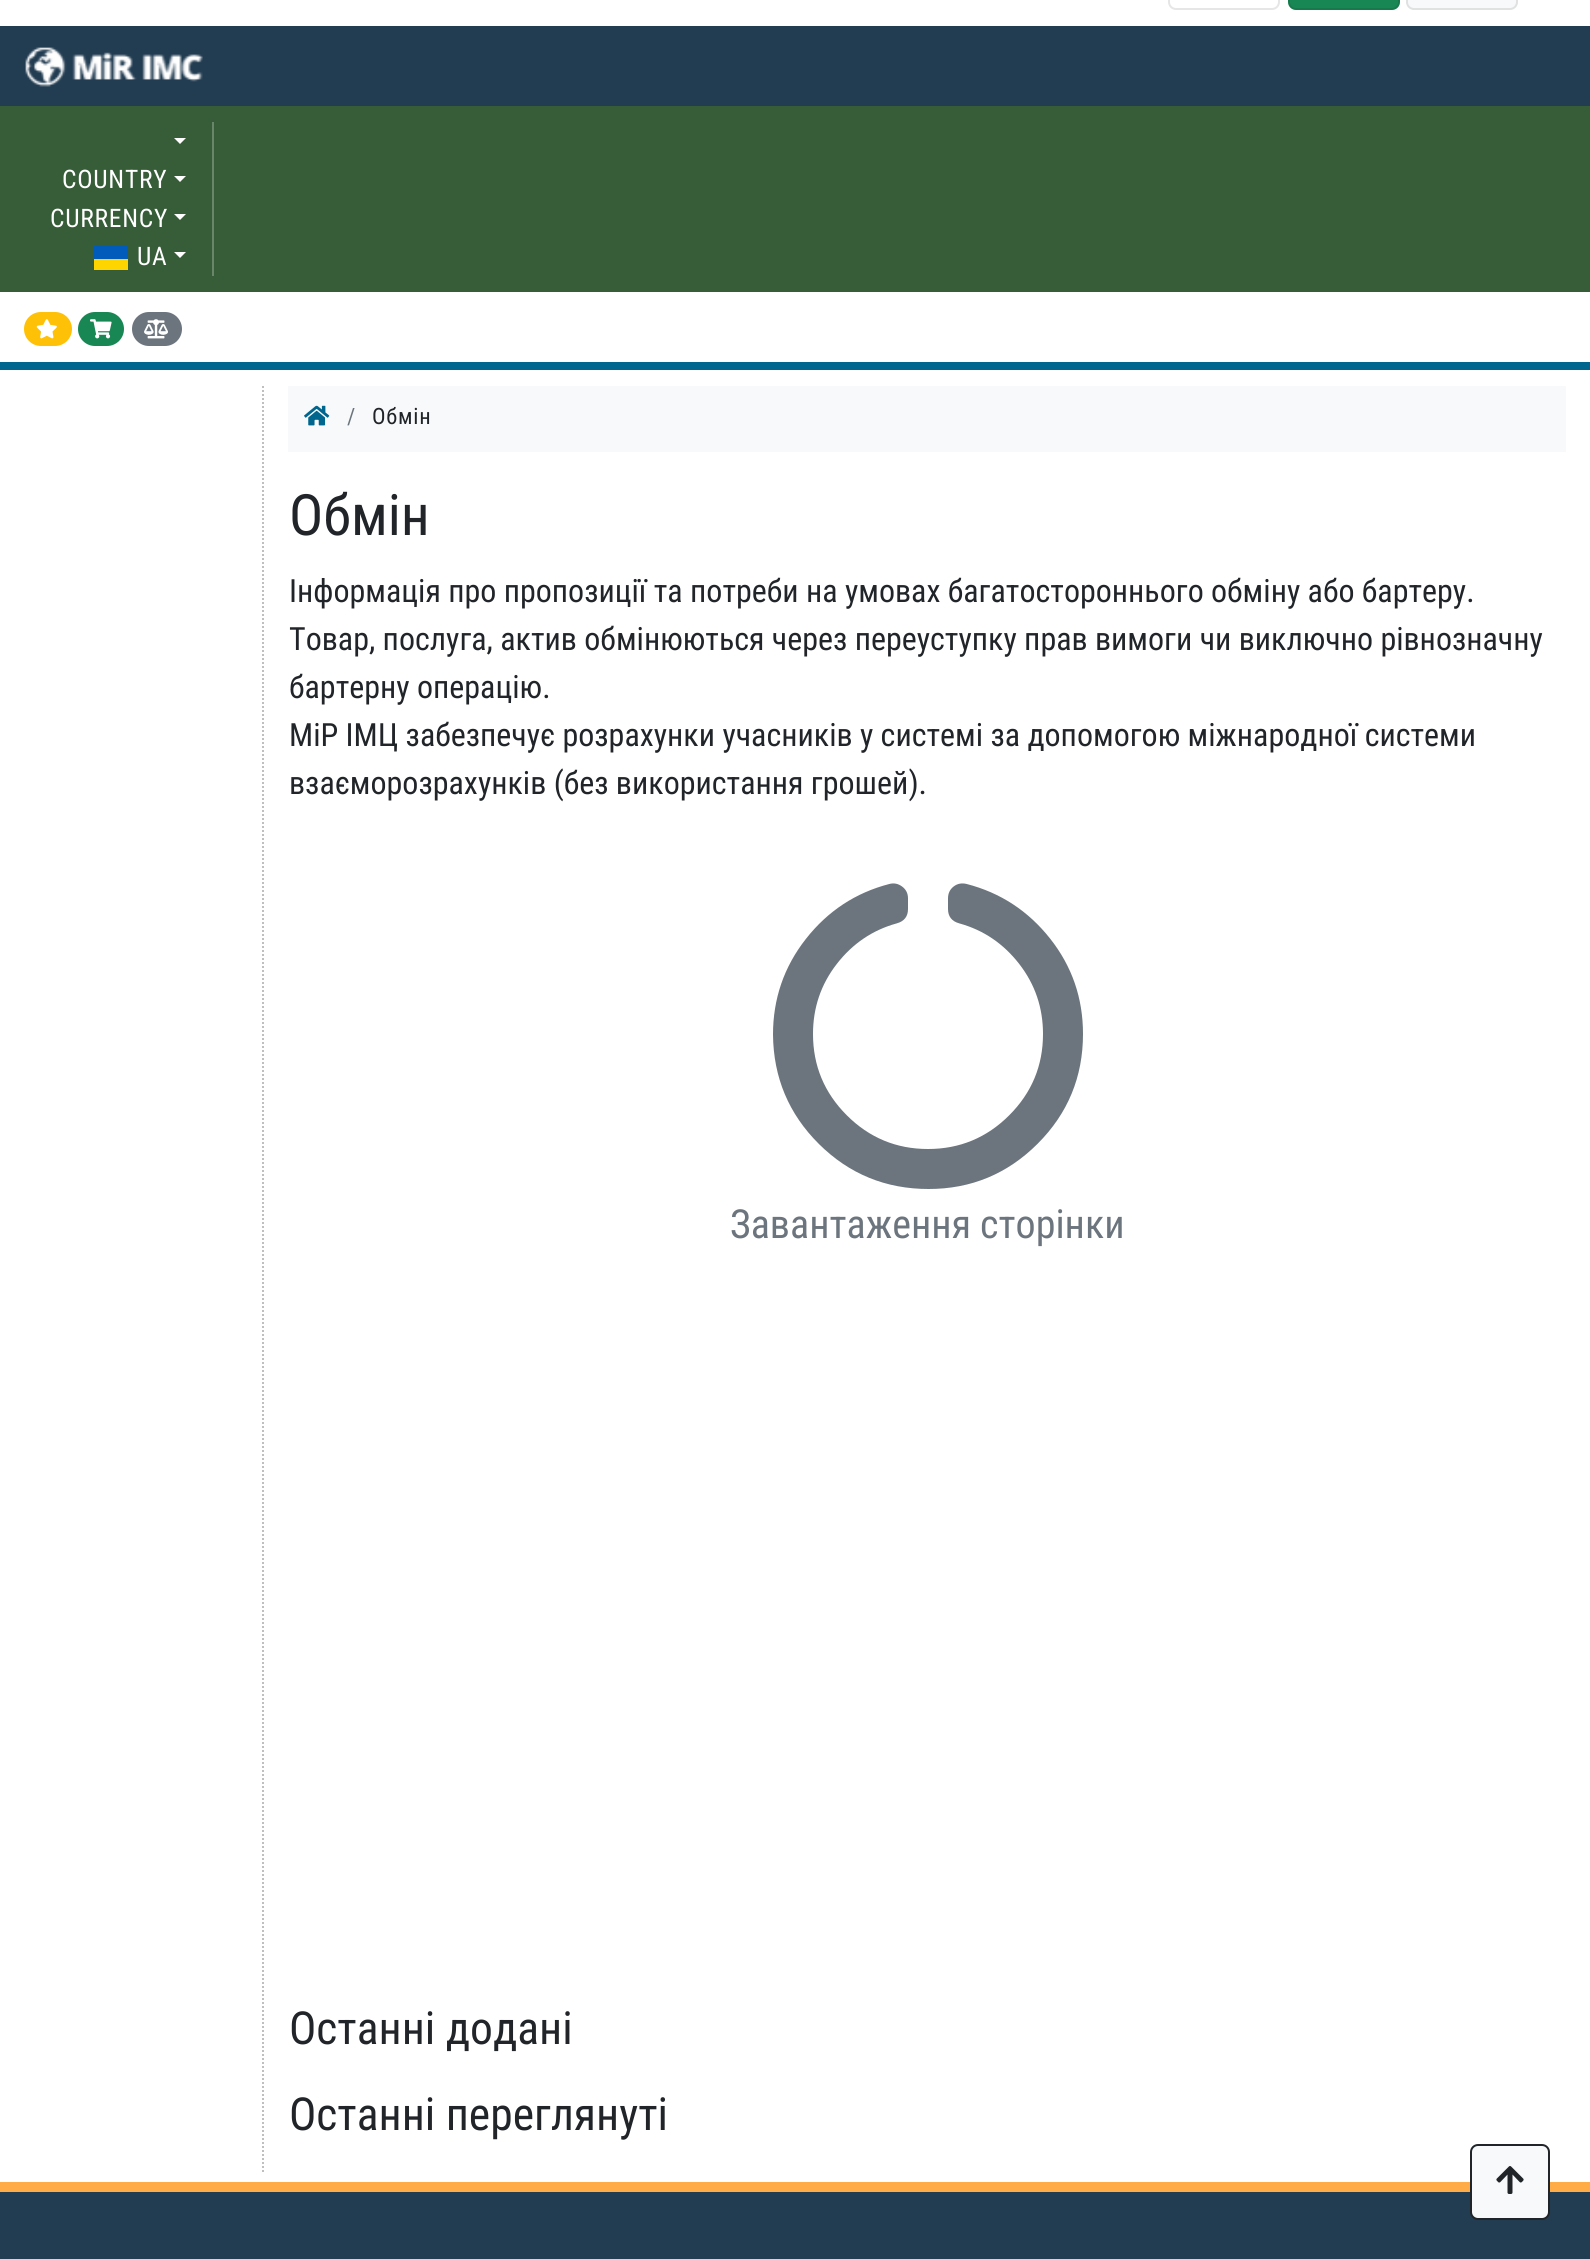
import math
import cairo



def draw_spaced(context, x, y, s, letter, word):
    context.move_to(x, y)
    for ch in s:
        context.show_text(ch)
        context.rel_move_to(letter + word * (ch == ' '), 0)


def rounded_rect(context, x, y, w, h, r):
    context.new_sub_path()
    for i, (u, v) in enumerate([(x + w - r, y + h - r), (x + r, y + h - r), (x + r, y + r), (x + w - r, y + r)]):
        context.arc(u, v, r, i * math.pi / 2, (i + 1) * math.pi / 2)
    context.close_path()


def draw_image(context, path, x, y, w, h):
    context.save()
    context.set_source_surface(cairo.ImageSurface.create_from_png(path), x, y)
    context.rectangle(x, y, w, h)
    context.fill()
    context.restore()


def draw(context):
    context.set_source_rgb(1, 1, 1)
    context.paint()
    rounded_rect(context, 1169, -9, 110, 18, 7)
    context.set_source_rgb(230 / 255, 230 / 255, 230 / 255)
    context.stroke()
    context.set_source_rgb(25 / 255, 135 / 255, 84 / 255)
    rounded_rect(context, 1288, -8, 112, 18, 8)
    context.fill()
    rounded_rect(context, 1289, -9, 110, 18, 7)
    context.set_source_rgba(0, 0, 0, 0.1)
    context.stroke()
    context.set_source_rgb(248 / 255, 249 / 255, 250 / 255)
    rounded_rect(context, 1406, -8, 112, 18, 8)
    context.fill()
    rounded_rect(context, 1407, -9, 110, 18, 7)
    context.set_source_rgba(0, 0, 0, 0.1)
    context.stroke()
    context.set_source_rgb(34 / 255, 60 / 255, 81 / 255)
    context.rectangle(0, 26, 1590, 80)
    context.fill()
    draw_image(context, "images/1.png", 25, 47, 178, 40)
    context.set_source_rgb(55 / 255, 92 / 255, 56 / 255)
    context.rectangle(0, 106, 1590, 186)
    context.fill()
    context.set_source_rgb(1, 1, 1)
    context.new_path()
    context.move_to(174, 176)
    context.line_to(186, 176)
    context.line_to(180, 182)
    context.close_path()
    context.fill()
    context.set_source_rgb(105 / 255, 133 / 255, 106 / 255)
    context.rectangle(212, 122, 2, 154)
    context.fill()
    context.set_source_rgb(1, 1, 1)
    context.new_path()
    context.move_to(174, 138)
    context.line_to(186, 138)
    context.line_to(180, 144)
    context.close_path()
    context.fill()
    context.new_path()
    context.move_to(174, 214)
    context.line_to(186, 214)
    context.line_to(180, 220)
    context.close_path()
    context.fill()
    context.set_source_rgb(1, 213 / 255, 0)
    context.rectangle(94, 259, 34, 11)
    context.fill()
    context.set_source_rgb(0, 91 / 255, 187 / 255)
    context.rectangle(94, 246, 34, 13)
    context.fill()
    context.set_source_rgb(1, 1, 1)
    context.new_path()
    context.move_to(174, 252)
    context.line_to(186, 252)
    context.line_to(180, 258)
    context.close_path()
    context.fill()
    context.set_source_rgb(0, 102 / 255, 141 / 255)
    context.rectangle(0, 362, 1590, 8)
    context.fill()
    context.set_source_rgb(1, 193 / 255, 7 / 255)
    rounded_rect(context, 24, 312, 48, 34, 17)
    context.fill()
    draw_image(context, "images/2.png", 36, 319, 21, 20)
    context.set_source_rgb(25 / 255, 135 / 255, 84 / 255)
    rounded_rect(context, 78, 312, 46, 34, 17)
    context.fill()
    draw_image(context, "images/3.png", 90, 319, 22, 20)
    context.set_source_rgb(108 / 255, 117 / 255, 125 / 255)
    rounded_rect(context, 132, 312, 50, 34, 17)
    context.fill()
    draw_image(context, "images/4.png", 144, 319, 24, 20)
    context.new_path()
    context.move_to(263, 386)
    context.line_to(263, 2174)
    context.set_source_rgb(191 / 255, 191 / 255, 191 / 255)
    context.set_dash([2, 2])
    context.stroke()
    context.set_source_rgb(248 / 255, 249 / 255, 250 / 255)
    context.rectangle(288, 386, 1278, 66)
    context.fill()
    draw_image(context, "images/5.png", 304, 405, 26, 21)
    draw_image(context, "images/6.png", 773, 883, 310, 306)
    context.set_source_rgb(34 / 255, 60 / 255, 81 / 255)
    context.rectangle(0, 2192, 1590, 67)
    context.fill()
    context.set_source_rgb(1, 171 / 255, 70 / 255)
    context.rectangle(0, 2182, 1590, 10)
    context.fill()
    context.set_source_rgb(248 / 255, 249 / 255, 250 / 255)
    rounded_rect(context, 1471, 2145, 78, 74, 7)
    context.fill_preserve()
    context.set_source_rgb(33 / 255, 37 / 255, 41 / 255)
    context.set_dash([])
    context.stroke()
    draw_image(context, "images/7.png", 1496, 2166, 28, 28)
    context.select_font_face("Roboto Condensed")
    context.set_font_size(25.5)
    context.set_source_rgb(1, 1, 1)
    draw_spaced(context, 62, 188, "COUNTRY", 0.75, 0)
    draw_spaced(context, 50, 227, "CURRENCY", 0.75, 0)
    draw_spaced(context, 137, 265, "UA", 0.75, 0)
    context.set_font_size(22.5)
    context.set_source_rgb(108 / 255, 117 / 255, 125 / 255)
    draw_spaced(context, 347, 424, "/", 0.75, 0)
    context.set_source_rgb(33 / 255, 37 / 255, 41 / 255)
    draw_spaced(context, 372, 424, "Обмін", 0.75, 0)
    context.set_font_size(57)
    context.move_to(289, 535)
    context.show_text("Обмін")
    context.set_font_size(32)
    context.move_to(289, 602)
    context.show_text("Інформація про пропозиції та потреби на умовах багатостороннього обміну або бартеру.")
    context.move_to(289, 650)
    context.show_text("Товар, послуга, актив обмінюються через переуступку прав вимоги чи виключно рівнозначну")
    context.move_to(289, 698)
    context.show_text("бартерну операцію.")
    context.move_to(289, 746)
    context.show_text("МіР ІМЦ забезпечує розрахунки учасників у системі за допомогою міжнародної системи")
    context.move_to(289, 794)
    context.show_text("взаєморозрахунків (без використання грошей).")
    context.set_font_size(40)
    context.set_source_rgb(108 / 255, 117 / 255, 125 / 255)
    context.move_to(730, 1238)
    context.show_text("Завантаження сторінки")
    context.set_font_size(45.5)
    context.set_source_rgb(33 / 255, 37 / 255, 41 / 255)
    context.move_to(289, 2044)
    context.show_text("Останні додані")
    context.move_to(289, 2130)
    context.show_text("Останні переглянуті")


surface = cairo.ImageSurface(cairo.Format.RGB24, 1590, 2259)
context = cairo.Context(surface)
options = cairo.FontOptions()
options.set_hint_metrics(cairo.HintMetrics.OFF)
options.set_hint_style(cairo.HintStyle.NONE)
context.set_font_options(options)
context.set_miter_limit(4)
draw(context)
surface.write_to_png("out.png")
